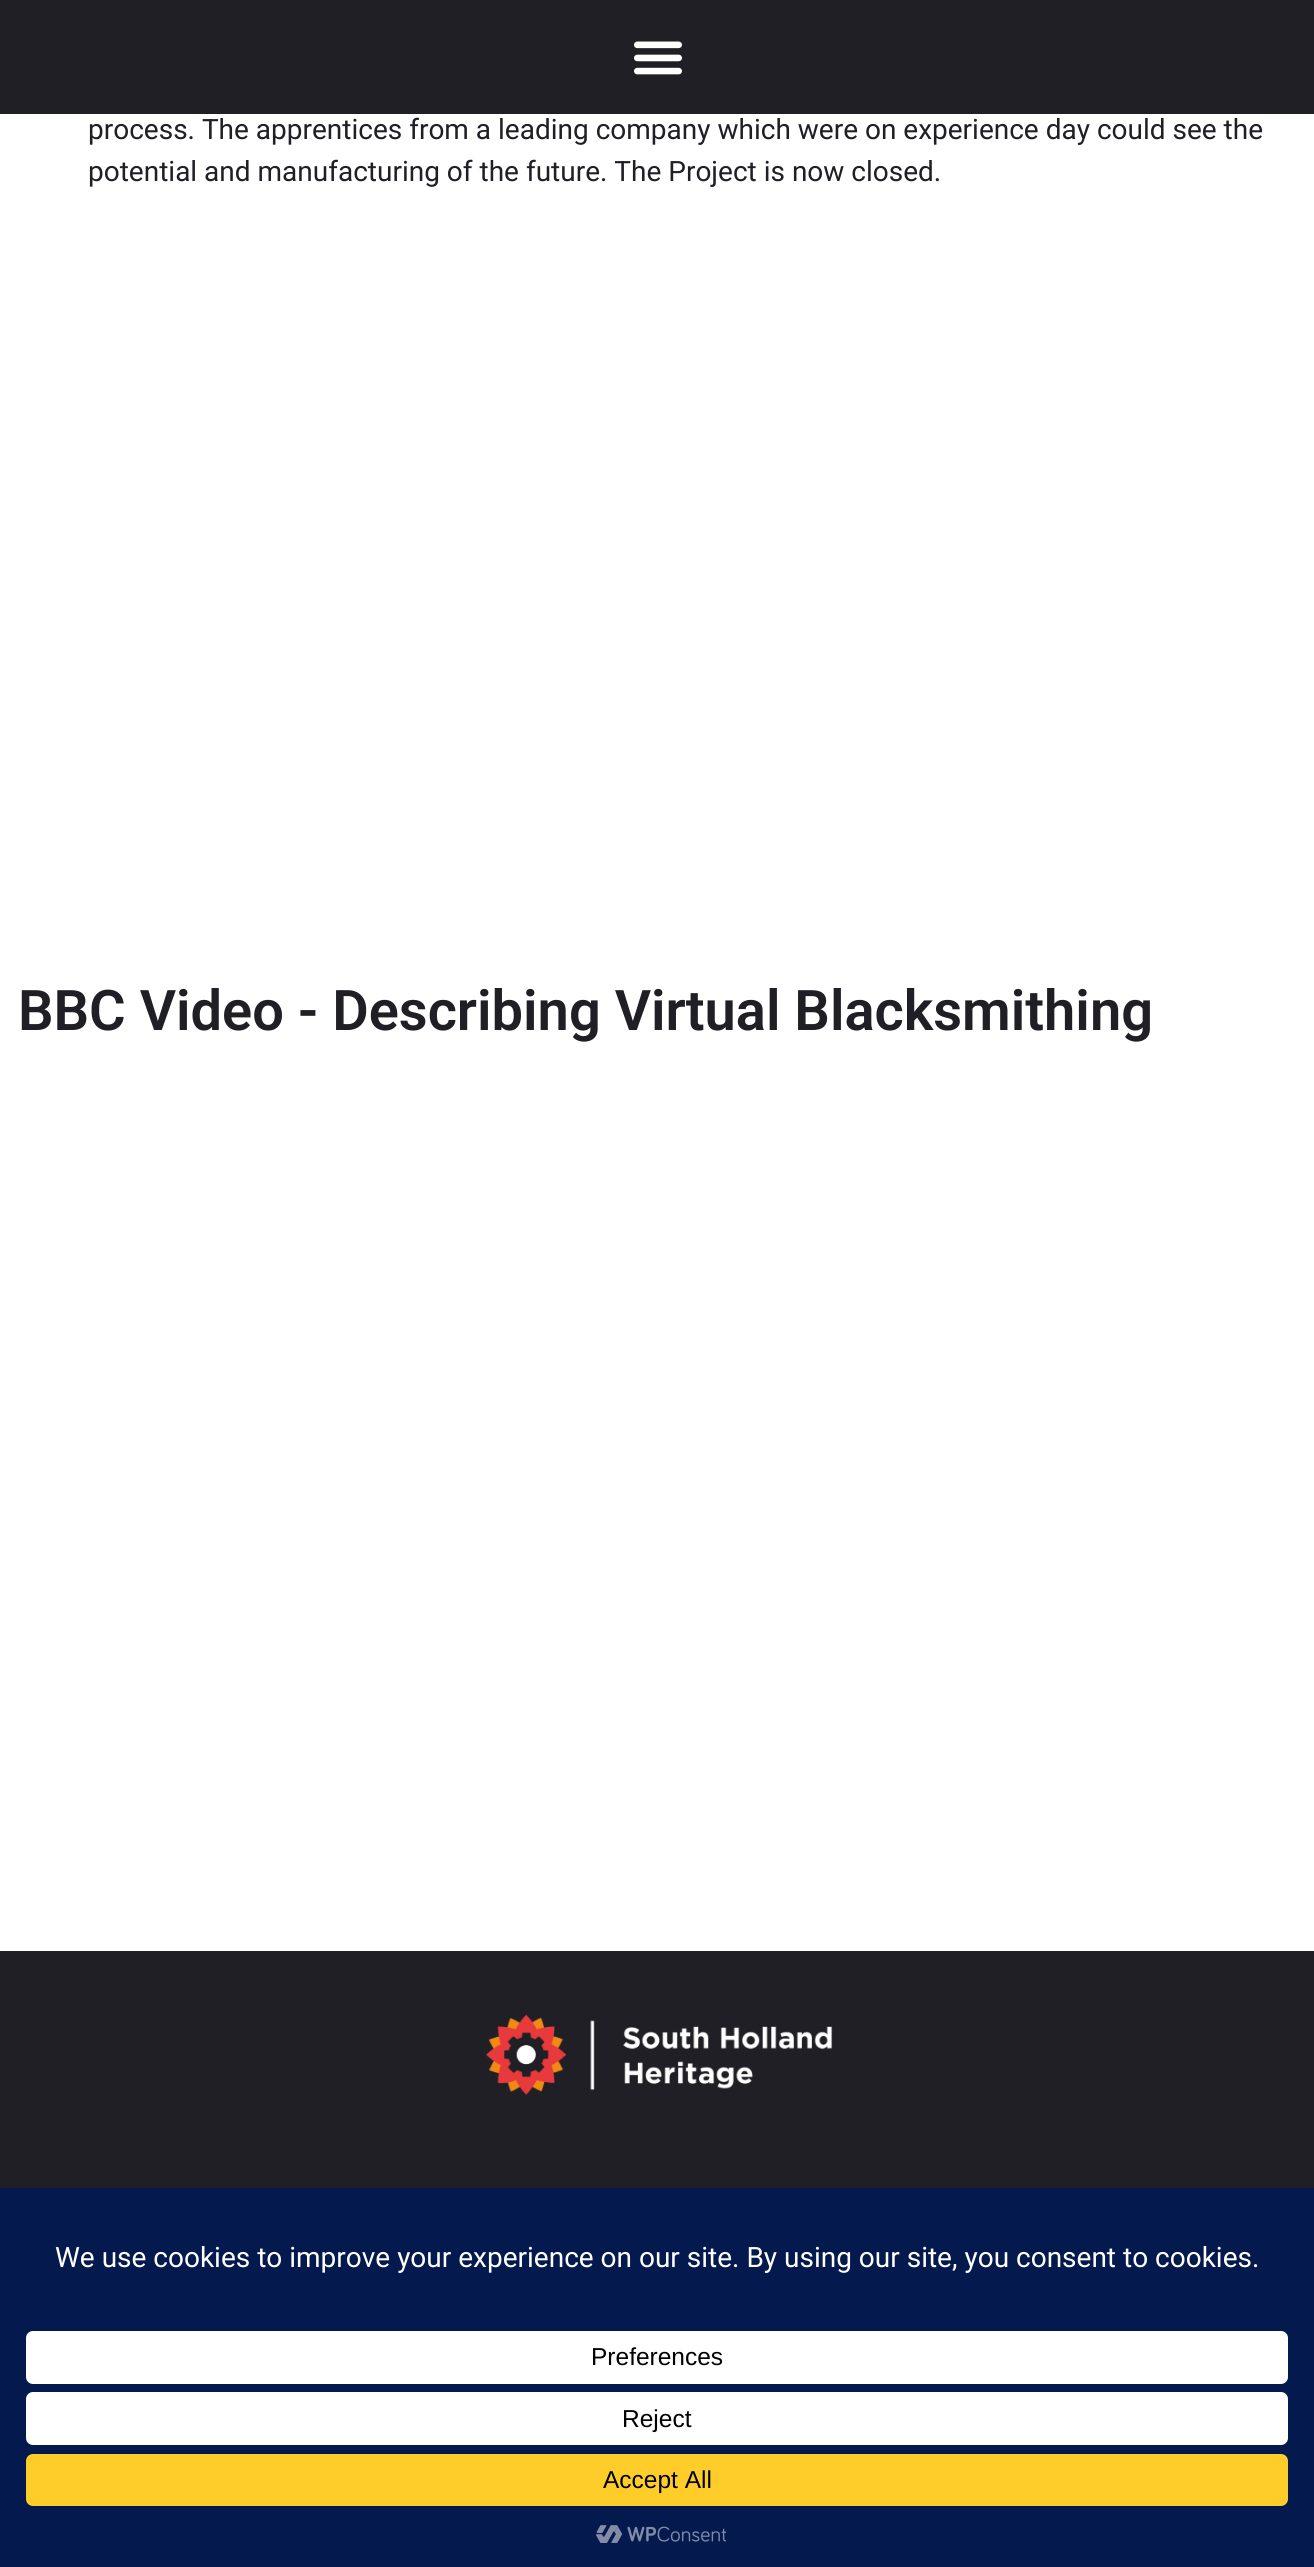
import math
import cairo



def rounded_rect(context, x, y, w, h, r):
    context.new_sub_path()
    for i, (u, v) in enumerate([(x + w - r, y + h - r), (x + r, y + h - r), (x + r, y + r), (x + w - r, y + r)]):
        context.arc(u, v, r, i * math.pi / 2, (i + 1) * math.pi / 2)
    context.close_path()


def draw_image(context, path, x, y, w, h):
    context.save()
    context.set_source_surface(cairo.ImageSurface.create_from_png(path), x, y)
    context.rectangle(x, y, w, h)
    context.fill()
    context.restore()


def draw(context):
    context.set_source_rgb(1, 1, 1)
    context.paint()
    context.set_source_rgb(31 / 255, 31 / 255, 37 / 255)
    context.rectangle(0, 0, 1314, 114)
    context.fill()
    draw_image(context, "images/1.png", 634, 41, 48, 34)
    context.rectangle(0, 1951, 1314, 237)
    context.fill()
    draw_image(context, "images/2.png", 485, 2014, 348, 81)
    context.set_source_rgb(4 / 255, 25 / 255, 78 / 255)
    context.rectangle(0, 2188, 1314, 379)
    context.fill()
    context.set_source_rgb(1, 1, 1)
    rounded_rect(context, 26, 2331, 1262, 53, 7)
    context.fill()
    rounded_rect(context, 26, 2392, 1262, 53, 7)
    context.fill()
    context.set_source_rgb(1, 205 / 255, 42 / 255)
    rounded_rect(context, 26, 2454, 1262, 52, 7)
    context.fill()
    draw_image(context, "images/3.png", 596, 2525, 131, 18)
    context.select_font_face("Roboto")
    context.set_font_size(28)
    context.set_source_rgb(31 / 255, 31 / 255, 37 / 255)
    context.move_to(88, 139)
    context.show_text("process. The apprentices from a leading company which were on experience day could see the")
    context.move_to(88, 181)
    context.show_text("potential and manufacturing of the future. The Project is now closed.")
    context.select_font_face("Roboto SemiBold")
    context.set_font_size(56)
    context.move_to(18, 1030)
    context.show_text("BBC Video - Describing Virtual Blacksmithing")
    context.select_font_face("Roboto")
    context.set_font_size(28)
    context.set_source_rgb(1, 1, 1)
    context.move_to(55, 2267)
    context.show_text("We use cookies to improve your experience on our site. By using our site, you consent to cookies.")
    context.select_font_face("Liberation Sans")
    context.set_font_size(24.5)
    context.set_source_rgb(0, 0, 0)
    context.move_to(591, 2365)
    context.show_text("Preferences")
    context.move_to(622, 2427)
    context.show_text("Reject")
    context.move_to(603, 2488)
    context.show_text("Accept All")


surface = cairo.ImageSurface(cairo.Format.RGB24, 1314, 2567)
context = cairo.Context(surface)
options = cairo.FontOptions()
options.set_hint_metrics(cairo.HintMetrics.OFF)
options.set_hint_style(cairo.HintStyle.NONE)
context.set_font_options(options)
context.set_miter_limit(4)
draw(context)
surface.write_to_png("out.png")
